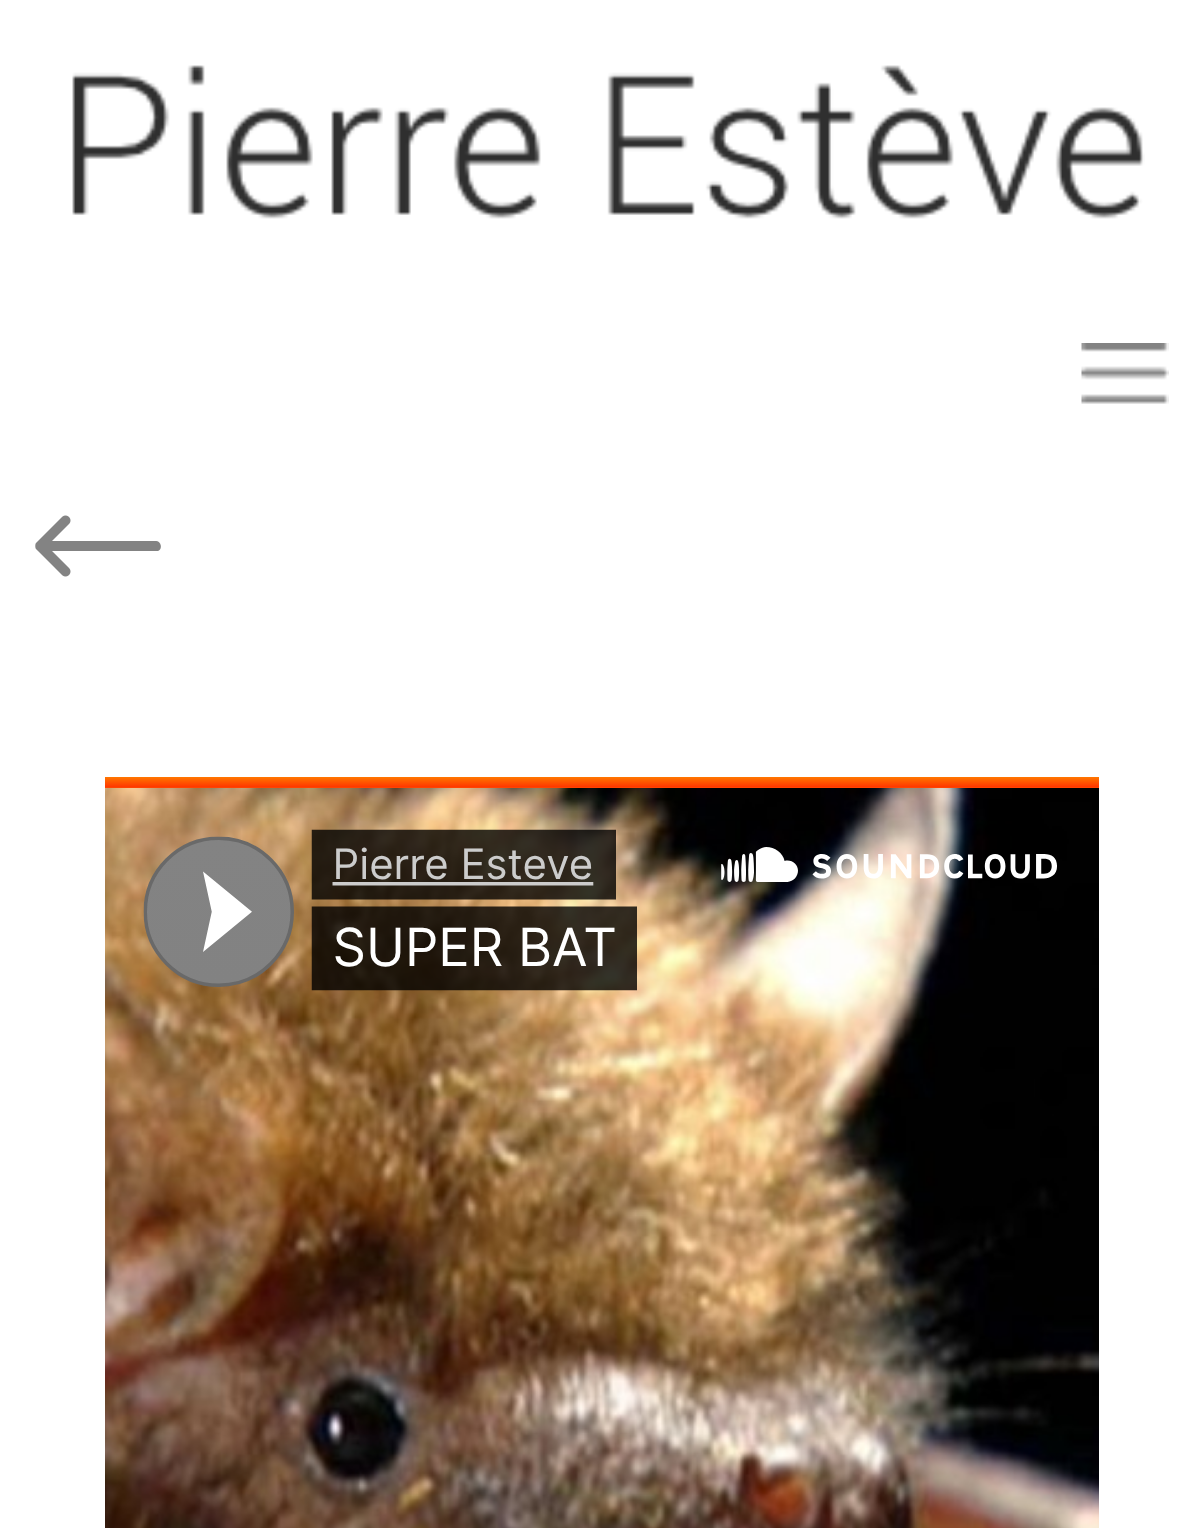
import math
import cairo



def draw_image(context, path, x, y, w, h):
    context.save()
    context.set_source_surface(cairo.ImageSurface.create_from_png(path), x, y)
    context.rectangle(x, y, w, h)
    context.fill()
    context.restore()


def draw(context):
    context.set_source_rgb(1, 1, 1)
    context.paint()
    draw_image(context, "images/1.png", 72, 65, 1073, 154)
    draw_image(context, "images/2.png", 1081, 343, 88, 61)
    context.set_source_rgb(131 / 255, 131 / 255, 131 / 255)
    context.new_path()
    context.move_to(156, 541)
    context.line_to(52, 541)
    context.line_to(69, 524)
    context.curve_to(71, 522, 71, 519, 69, 517)
    context.curve_to(67, 515, 64, 515, 62, 517)
    context.line_to(36, 543)
    context.curve_to(35, 544, 35, 548, 36, 549)
    context.line_to(62, 575)
    context.curve_to(64, 577, 67, 577, 69, 575)
    context.curve_to(71, 573, 71, 570, 69, 568)
    context.line_to(52, 551)
    context.line_to(158, 551)
    context.curve_to(163, 549, 161, 541, 156, 541)
    context.close_path()
    context.fill()
    draw_image(context, "images/3.png", 105, 777, 994, 751)


surface = cairo.ImageSurface(cairo.Format.RGB24, 1201, 1528)
context = cairo.Context(surface)
options = cairo.FontOptions()
options.set_hint_metrics(cairo.HintMetrics.OFF)
options.set_hint_style(cairo.HintStyle.NONE)
context.set_font_options(options)
context.set_miter_limit(4)
draw(context)
surface.write_to_png("out.png")
